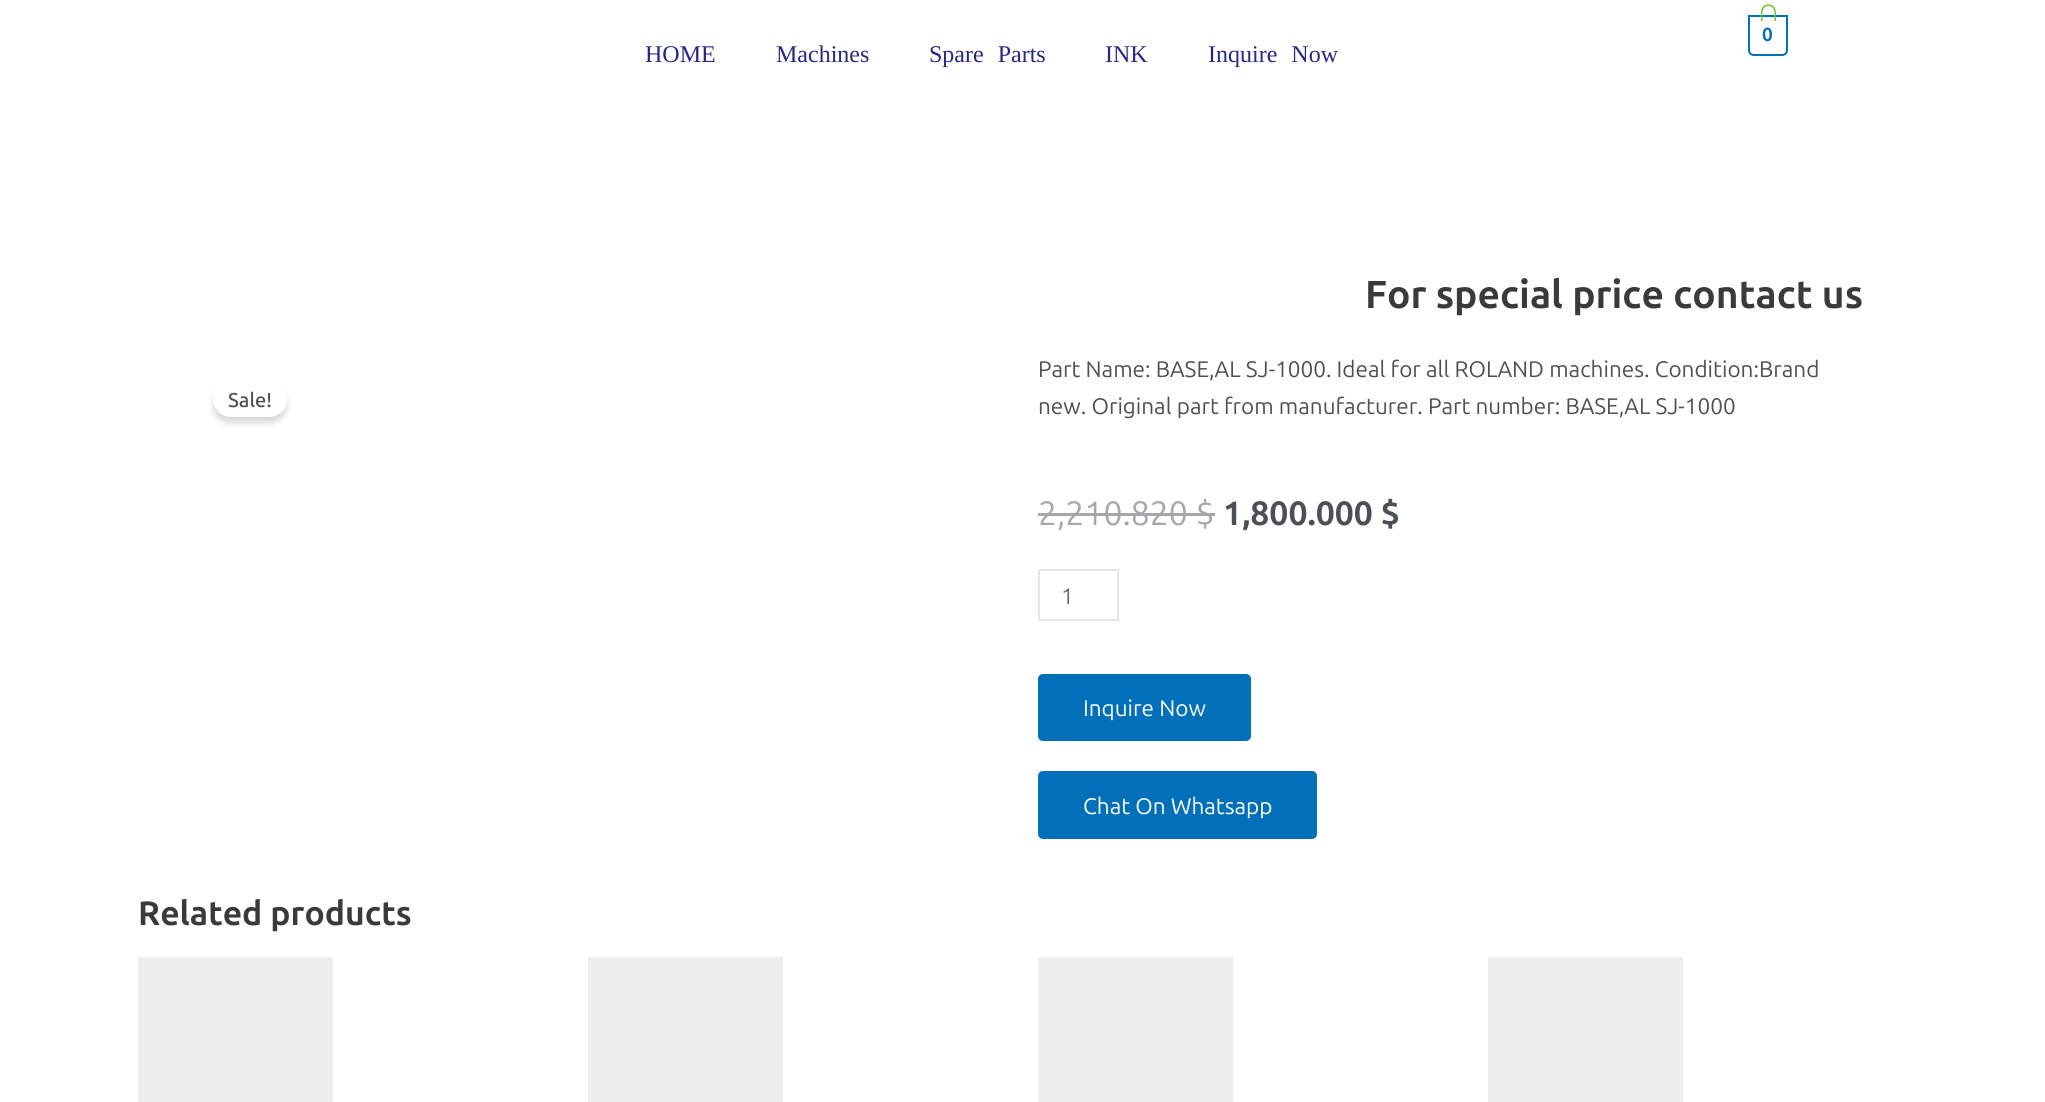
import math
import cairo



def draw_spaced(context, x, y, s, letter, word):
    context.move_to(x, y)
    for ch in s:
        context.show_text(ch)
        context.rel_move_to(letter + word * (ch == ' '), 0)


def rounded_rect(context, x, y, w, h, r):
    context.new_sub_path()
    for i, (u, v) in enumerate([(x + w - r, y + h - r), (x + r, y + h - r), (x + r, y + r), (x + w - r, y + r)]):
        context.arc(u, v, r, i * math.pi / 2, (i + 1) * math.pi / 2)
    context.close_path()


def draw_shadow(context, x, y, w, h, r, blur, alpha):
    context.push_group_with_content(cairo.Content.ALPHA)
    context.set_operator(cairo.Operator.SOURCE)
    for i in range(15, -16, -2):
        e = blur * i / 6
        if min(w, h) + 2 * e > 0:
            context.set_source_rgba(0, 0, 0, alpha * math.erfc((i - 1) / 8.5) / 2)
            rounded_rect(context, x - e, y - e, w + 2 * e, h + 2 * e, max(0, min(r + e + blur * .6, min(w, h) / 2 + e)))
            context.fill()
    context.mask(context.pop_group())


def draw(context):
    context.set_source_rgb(1, 1, 1)
    context.paint()
    context.new_path()
    context.move_to(1749, 16)
    context.line_to(1787, 16)
    context.line_to(1787, 50)
    context.curve_to(1787, 53, 1785, 55, 1782, 55)
    context.line_to(1754, 55)
    context.curve_to(1751, 55, 1749, 53, 1749, 50)
    context.close_path()
    context.set_source_rgb(1 / 255, 112 / 255, 185 / 255)
    context.stroke()
    context.set_source_rgb(117 / 255, 195 / 255, 44 / 255)
    context.set_fill_rule(cairo.FillRule.EVEN_ODD)
    context.new_path()
    context.move_to(1768.5, 4.5)
    context.curve_to(1777.5, 4.5, 1776, 15, 1776, 21)
    context.line_to(1761, 21)
    context.curve_to(1761, 15, 1759, 4.5, 1768.5, 4.5)
    context.close_path()
    context.move_to(1768.5, 6)
    context.curve_to(1776, 6, 1774.5, 16, 1774.5, 21)
    context.line_to(1762.5, 21)
    context.curve_to(1762.5, 16, 1760.5, 6, 1768.5, 6)
    context.close_path()
    context.fill()
    context.set_source_rgb(0, 0, 0)
    draw_shadow(context, 213, 387, 74, 36, 18, 3, 0.15)
    context.set_source_rgb(1, 1, 1)
    rounded_rect(context, 213, 381, 74, 36, 18)
    context.fill()
    context.set_source_rgb(165 / 255, 167 / 255, 172 / 255)
    context.rectangle(1038, 513, 177, 3)
    context.fill()
    context.rectangle(1039, 570, 79, 50)
    context.set_source_rgb(229 / 255, 229 / 255, 229 / 255)
    context.stroke()
    context.set_source_rgb(1 / 255, 112 / 255, 185 / 255)
    rounded_rect(context, 1038, 674, 213, 67, 5)
    context.fill()
    rounded_rect(context, 1038, 771, 279, 68, 5)
    context.fill()
    context.set_source_rgb(238 / 255, 238 / 255, 238 / 255)
    context.rectangle(138, 957, 195, 145)
    context.fill()
    context.rectangle(588, 957, 195, 145)
    context.fill()
    context.rectangle(1038, 957, 195, 145)
    context.fill()
    context.rectangle(1488, 957, 195, 145)
    context.fill()
    context.select_font_face("Ubuntu", cairo.FontSlant.NORMAL, cairo.FontWeight.BOLD)
    context.set_font_size(19)
    context.set_source_rgb(1 / 255, 112 / 255, 185 / 255)
    context.move_to(1762, 41)
    context.show_text("0")
    context.select_font_face("Liberation Serif")
    context.set_font_size(24)
    context.set_source_rgb(39 / 255, 39 / 255, 133 / 255)
    context.move_to(645, 62)
    context.show_text("HOME")
    context.move_to(776, 62)
    context.show_text("Machines")
    draw_spaced(context, 929, 62, "Spare Parts", 0, 8)
    context.move_to(1105, 62)
    context.show_text("INK")
    draw_spaced(context, 1208, 62, "Inquire Now", 0, 8)
    context.select_font_face("Ubuntu", cairo.FontSlant.NORMAL, cairo.FontWeight.BOLD)
    context.set_font_size(39)
    context.set_source_rgb(58 / 255, 58 / 255, 58 / 255)
    context.move_to(1365, 308)
    context.show_text("For special price contact us")
    context.select_font_face("Ubuntu Medium")
    context.set_font_size(20)
    context.set_source_rgb(75 / 255, 79 / 255, 88 / 255)
    context.move_to(228, 407)
    context.show_text("Sale!")
    context.select_font_face("Ubuntu")
    context.set_font_size(22.5)
    context.move_to(1038, 377)
    context.show_text("Part Name: BASE,AL SJ-1000. Ideal for all ROLAND machines. Condition:Brand")
    context.move_to(1038, 414)
    context.show_text("new. Original part from manufacturer. Part number: BASE,AL SJ-1000")
    context.set_font_size(33.75)
    context.set_source_rgb(165 / 255, 167 / 255, 172 / 255)
    context.move_to(1038, 525)
    context.show_text("2,210.820 $")
    context.select_font_face("Ubuntu", cairo.FontSlant.NORMAL, cairo.FontWeight.BOLD)
    context.set_source_rgb(75 / 255, 79 / 255, 88 / 255)
    context.move_to(1223, 525)
    context.show_text("1,800.000 $")
    context.select_font_face("Ubuntu")
    context.set_font_size(22.5)
    context.set_source_rgb(102 / 255, 102 / 255, 102 / 255)
    context.move_to(1061, 604)
    context.show_text("1")
    context.set_source_rgb(1, 1, 1)
    context.move_to(1083, 716)
    context.show_text("Inquire Now")
    context.move_to(1083, 814)
    context.show_text("Chat On Whatsapp")
    context.select_font_face("Ubuntu", cairo.FontSlant.NORMAL, cairo.FontWeight.BOLD)
    context.set_font_size(33.75)
    context.set_source_rgb(58 / 255, 58 / 255, 58 / 255)
    context.move_to(138, 925)
    context.show_text("Related products")


surface = cairo.ImageSurface(cairo.Format.RGB24, 2045, 1102)
context = cairo.Context(surface)
options = cairo.FontOptions()
options.set_hint_metrics(cairo.HintMetrics.OFF)
options.set_hint_style(cairo.HintStyle.NONE)
context.set_font_options(options)
context.set_miter_limit(4)
draw(context)
surface.write_to_png("out.png")
